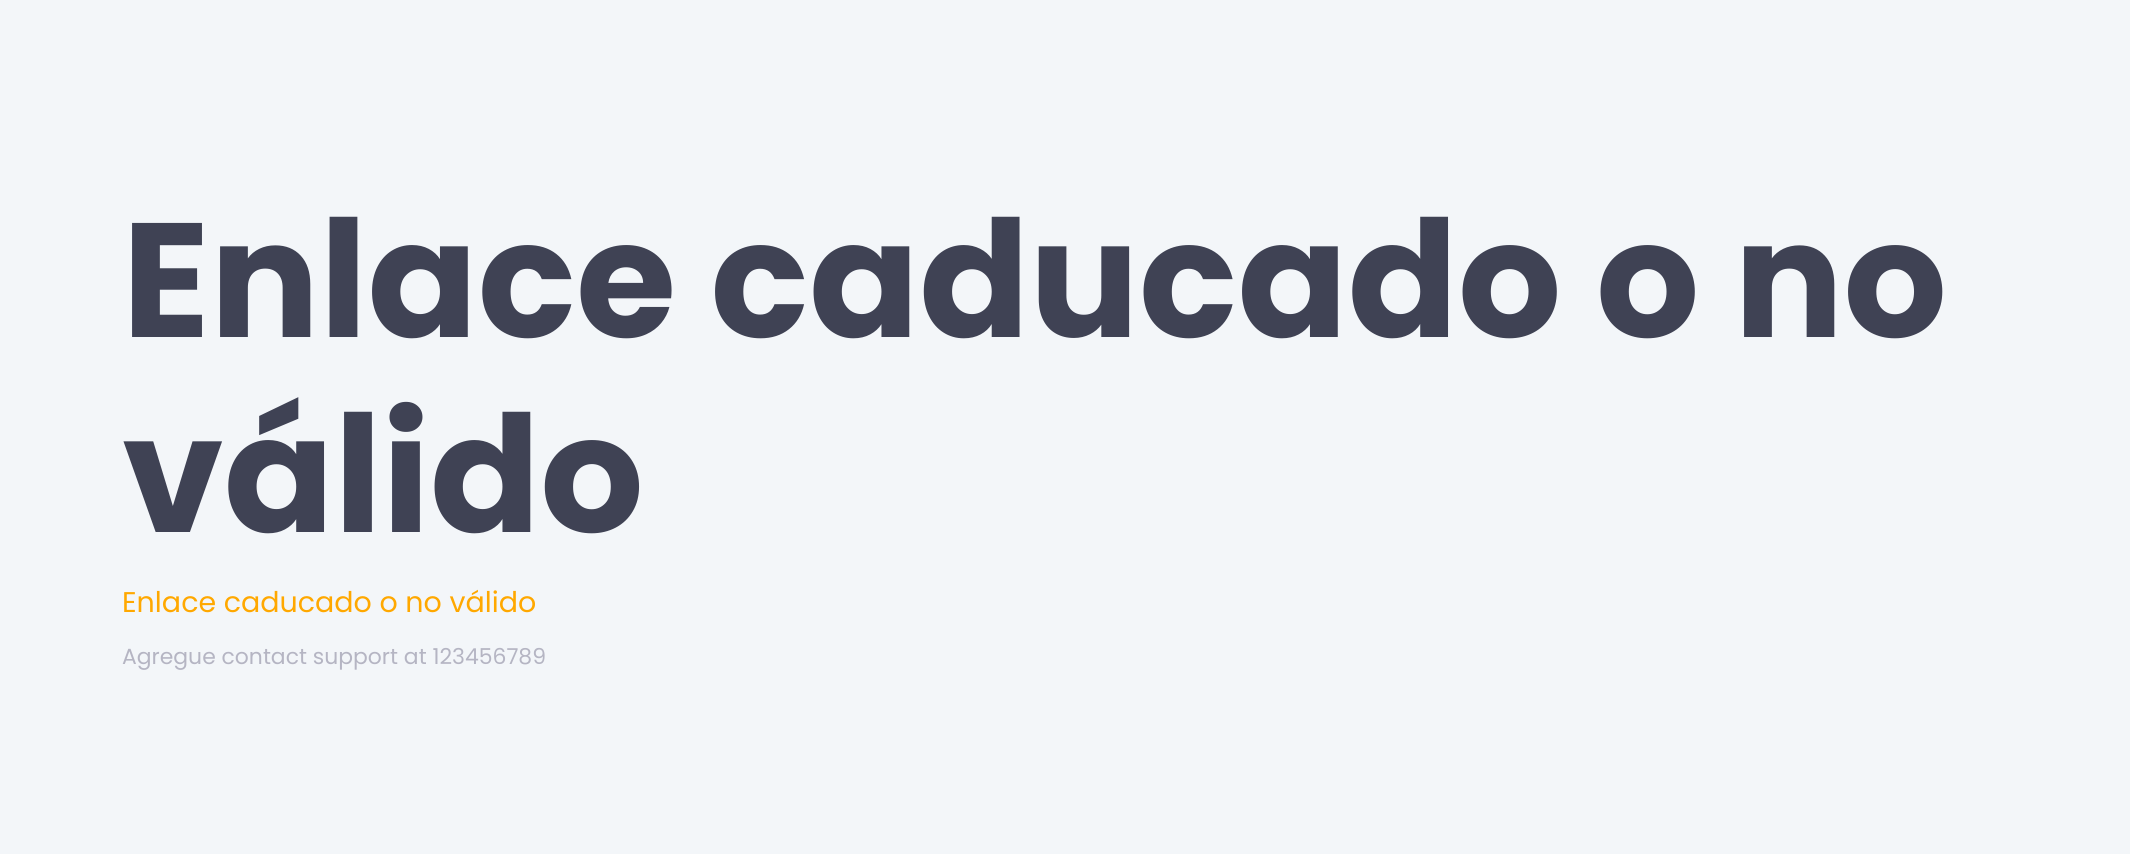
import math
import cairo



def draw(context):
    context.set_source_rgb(243 / 255, 246 / 255, 249 / 255)
    context.paint()
    context.select_font_face("Poppins", cairo.FontSlant.NORMAL, cairo.FontWeight.BOLD)
    context.set_font_size(162.5)
    context.set_source_rgb(63 / 255, 66 / 255, 84 / 255)
    context.move_to(122, 337)
    context.show_text("Enlace caducado o no")
    context.move_to(122, 532)
    context.show_text("válido")
    context.select_font_face("Poppins")
    context.set_font_size(28.5)
    context.set_source_rgb(1, 168 / 255, 0)
    context.move_to(122, 612)
    context.show_text("Enlace caducado o no válido")
    context.set_font_size(21.9)
    context.set_source_rgb(181 / 255, 181 / 255, 195 / 255)
    context.move_to(122, 664)
    context.show_text("Agregue contact support at 123456789")


surface = cairo.ImageSurface(cairo.Format.RGB24, 2130, 854)
context = cairo.Context(surface)
options = cairo.FontOptions()
options.set_hint_metrics(cairo.HintMetrics.OFF)
options.set_hint_style(cairo.HintStyle.NONE)
context.set_font_options(options)
context.set_miter_limit(4)
draw(context)
surface.write_to_png("out.png")
